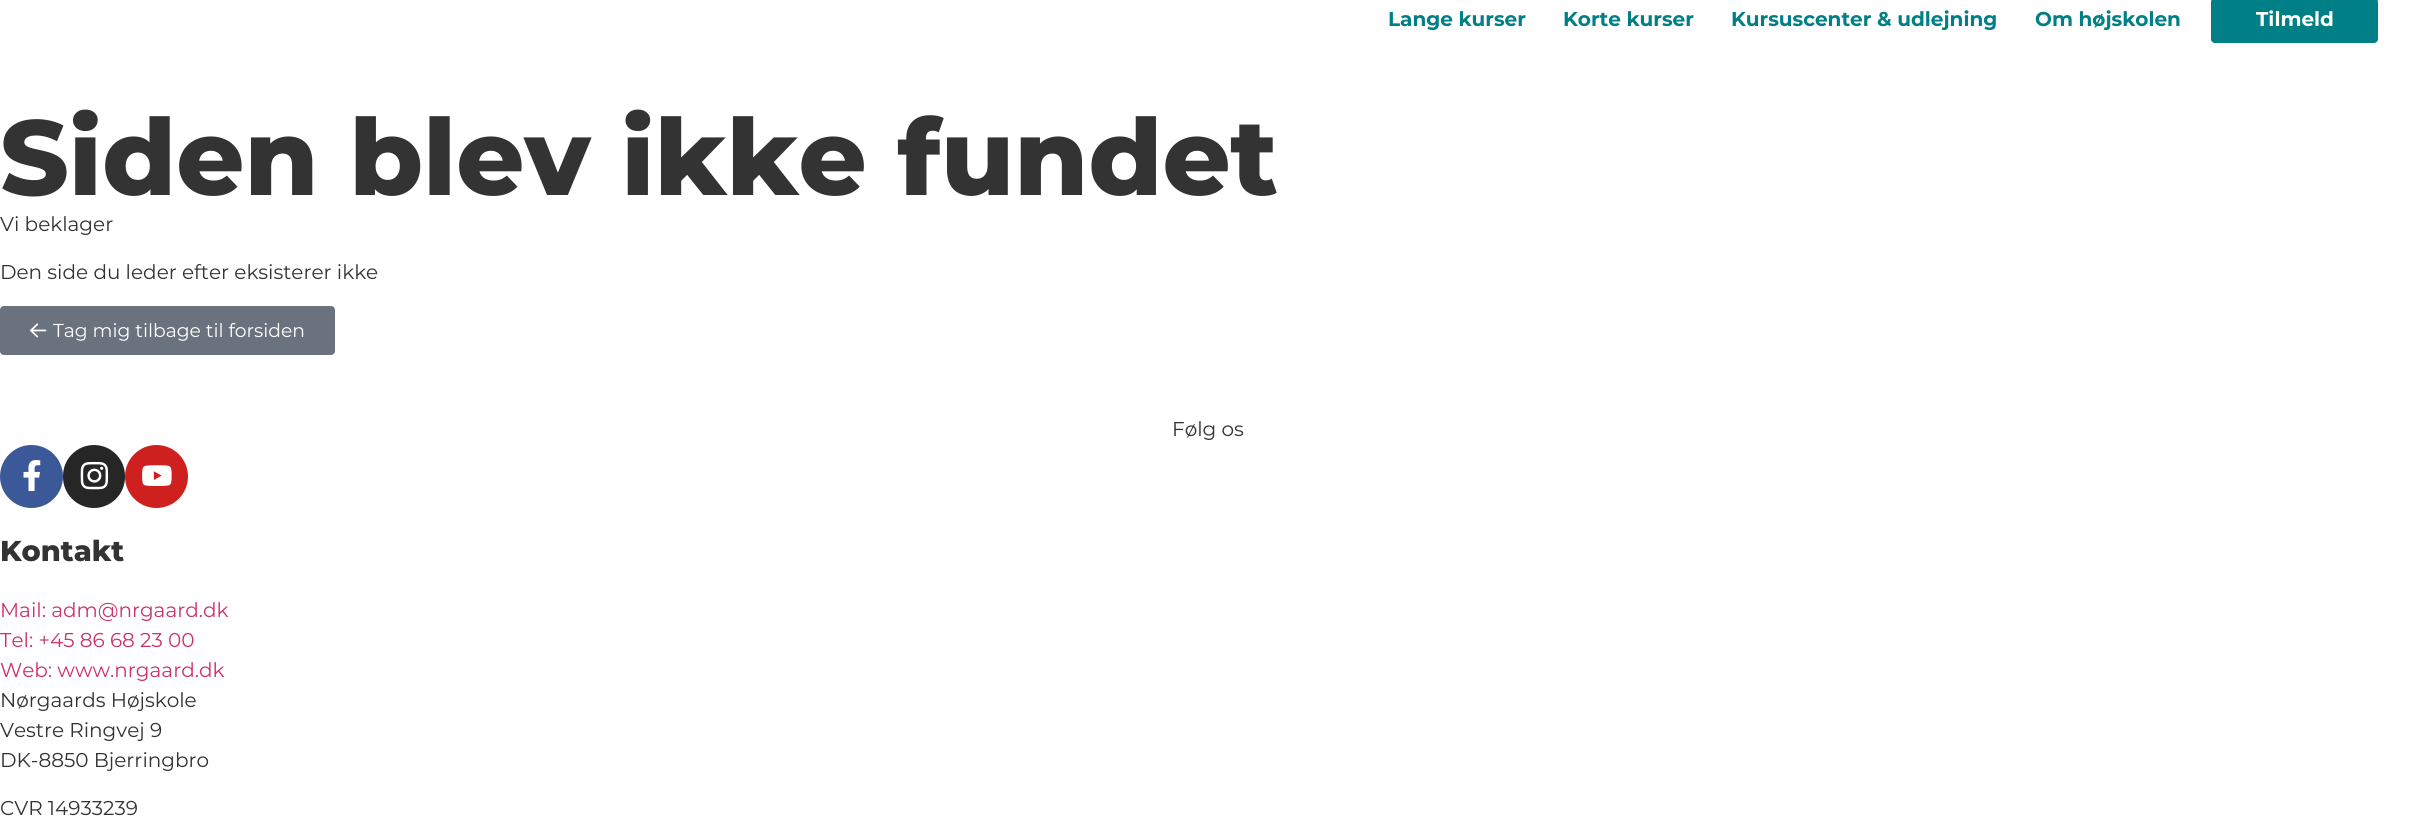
import math
import cairo



def rounded_rect(context, x, y, w, h, r):
    context.new_sub_path()
    for i, (u, v) in enumerate([(x + w - r, y + h - r), (x + r, y + h - r), (x + r, y + r), (x + w - r, y + r)]):
        context.arc(u, v, r, i * math.pi / 2, (i + 1) * math.pi / 2)
    context.close_path()


def draw_image(context, path, x, y, w, h):
    context.save()
    context.set_source_surface(cairo.ImageSurface.create_from_png(path), x, y)
    context.rectangle(x, y, w, h)
    context.fill()
    context.restore()


def draw(context):
    context.set_source_rgb(1, 1, 1)
    context.paint()
    context.set_source_rgb(0, 128 / 255, 134 / 255)
    rounded_rect(context, 2211, -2, 167, 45, 4)
    context.fill()
    context.set_source_rgb(105 / 255, 114 / 255, 125 / 255)
    rounded_rect(context, 0, 306, 335, 49, 4)
    context.fill()
    draw_image(context, "images/1.png", 30, 323, 17, 15)
    context.set_source_rgb(59 / 255, 89 / 255, 152 / 255)
    context.arc(31.5, 476.5, 31.5, 0, 2 * math.pi)
    context.fill()
    draw_image(context, "images/2.png", 23, 460, 18, 31)
    context.set_source_rgb(38 / 255, 38 / 255, 38 / 255)
    rounded_rect(context, 63, 445, 62, 63, 31)
    context.fill()
    draw_image(context, "images/3.png", 80, 461, 29, 29)
    context.set_source_rgb(205 / 255, 32 / 255, 31 / 255)
    context.arc(156.5, 476.5, 31.5, 0, 2 * math.pi)
    context.fill()
    draw_image(context, "images/4.png", 142, 465, 30, 22)
    context.select_font_face("Montserrat", cairo.FontSlant.NORMAL, cairo.FontWeight.BOLD)
    context.set_font_size(20)
    context.set_source_rgb(0, 128 / 255, 134 / 255)
    context.move_to(1388, 26)
    context.show_text("Lange kurser")
    context.move_to(1563, 26)
    context.show_text("Korte kurser")
    context.move_to(1731, 26)
    context.show_text("Kursuscenter & udlejning")
    context.move_to(2035, 26)
    context.show_text("Om højskolen")
    context.set_source_rgb(1, 1, 1)
    context.move_to(2256, 26)
    context.show_text("Tilmeld")
    context.select_font_face("Montserrat ExtraBold")
    context.set_font_size(106.25)
    context.set_source_rgb(51 / 255, 51 / 255, 51 / 255)
    context.move_to(0, 195)
    context.show_text("Siden blev ikke fundet")
    context.select_font_face("Montserrat")
    context.set_font_size(20)
    context.move_to(0, 231)
    context.show_text("Vi beklager")
    context.move_to(0, 279)
    context.show_text("Den side du leder efter eksisterer ikke")
    context.set_font_size(18.75)
    context.set_source_rgb(1, 1, 1)
    context.move_to(53, 337)
    context.show_text("Tag mig tilbage til forsiden")
    context.set_font_size(20)
    context.set_source_rgb(51 / 255, 51 / 255, 51 / 255)
    context.move_to(1172, 436)
    context.show_text("Følg os")
    context.select_font_face("Montserrat ExtraBold")
    context.set_font_size(28.75)
    context.move_to(0, 561)
    context.show_text("Kontakt")
    context.select_font_face("Montserrat")
    context.set_font_size(20)
    context.set_source_rgb(204 / 255, 51 / 255, 102 / 255)
    context.move_to(0, 617)
    context.show_text("Mail: adm@nrgaard.dk")
    context.move_to(0, 647)
    context.show_text("Tel: +45 86 68 23 00")
    context.move_to(0, 677)
    context.show_text("Web: www.nrgaard.dk")
    context.set_source_rgb(51 / 255, 51 / 255, 51 / 255)
    context.move_to(0, 707)
    context.show_text("Nørgaards Højskole")
    context.move_to(0, 737)
    context.show_text("Vestre Ringvej 9")
    context.move_to(0, 767)
    context.show_text("DK-8850 Bjerringbro")
    context.move_to(0, 815)
    context.show_text("CVR 14933239")


surface = cairo.ImageSurface(cairo.Format.RGB24, 2415, 816)
context = cairo.Context(surface)
options = cairo.FontOptions()
options.set_hint_metrics(cairo.HintMetrics.OFF)
options.set_hint_style(cairo.HintStyle.NONE)
context.set_font_options(options)
context.set_miter_limit(4)
draw(context)
surface.write_to_png("out.png")
